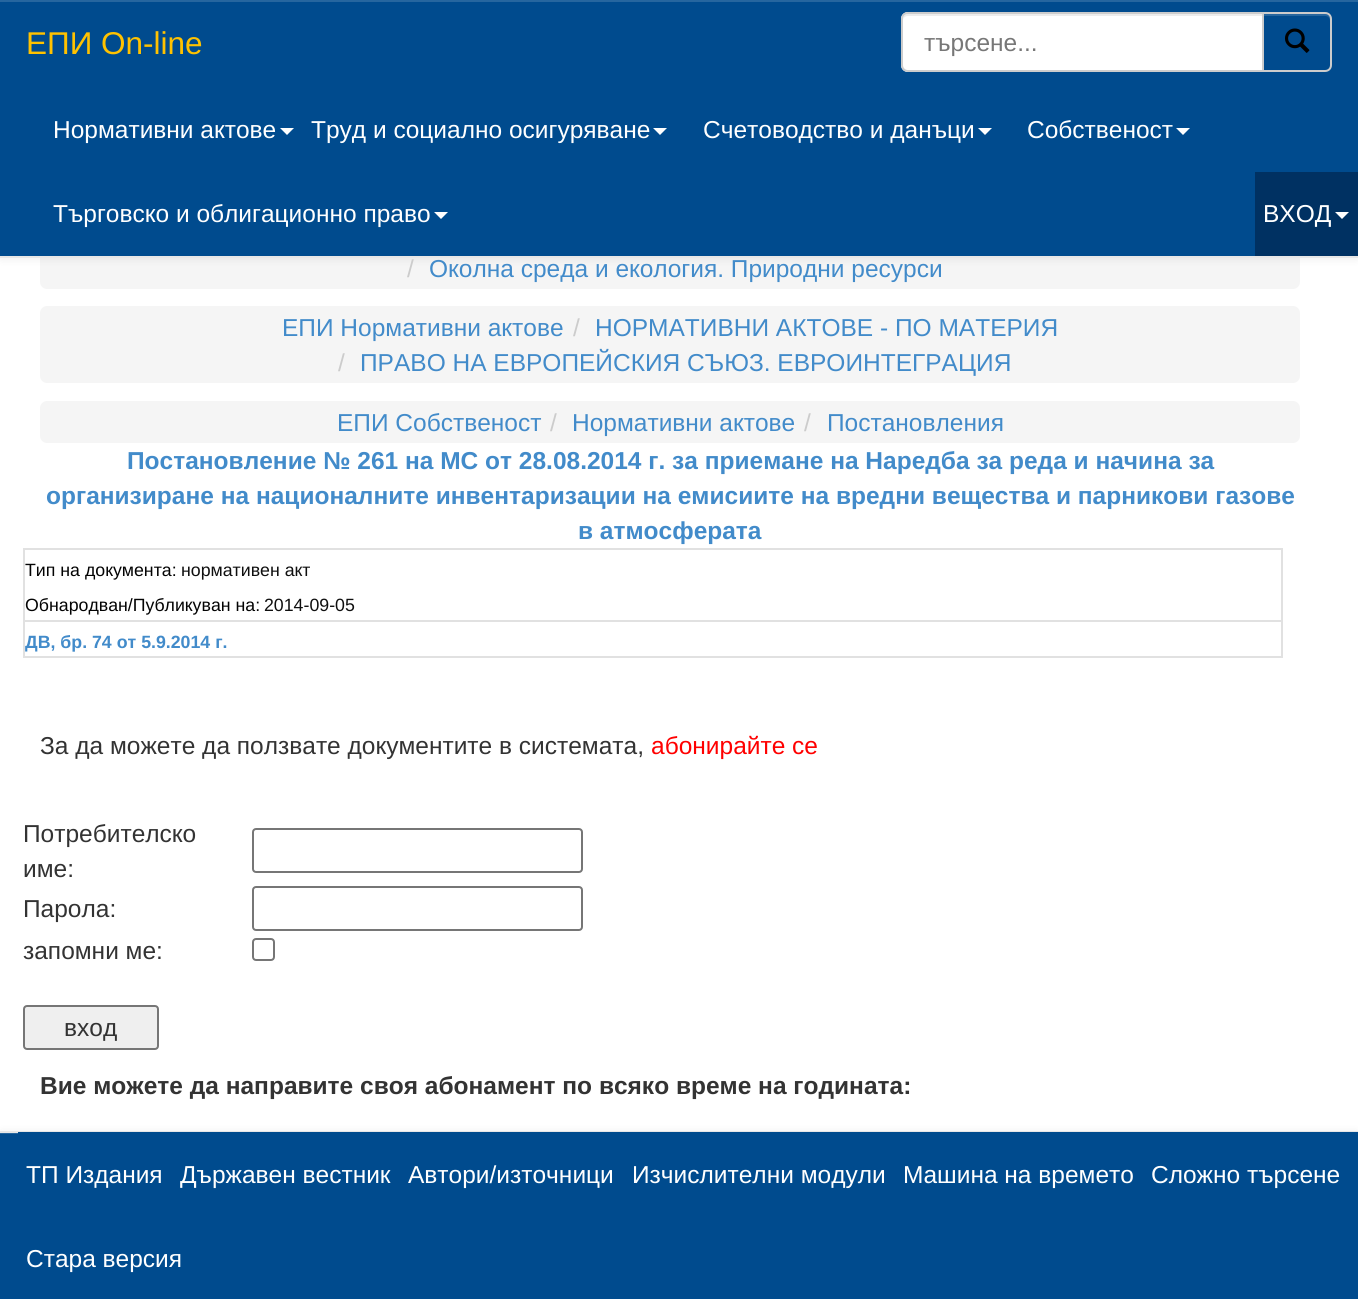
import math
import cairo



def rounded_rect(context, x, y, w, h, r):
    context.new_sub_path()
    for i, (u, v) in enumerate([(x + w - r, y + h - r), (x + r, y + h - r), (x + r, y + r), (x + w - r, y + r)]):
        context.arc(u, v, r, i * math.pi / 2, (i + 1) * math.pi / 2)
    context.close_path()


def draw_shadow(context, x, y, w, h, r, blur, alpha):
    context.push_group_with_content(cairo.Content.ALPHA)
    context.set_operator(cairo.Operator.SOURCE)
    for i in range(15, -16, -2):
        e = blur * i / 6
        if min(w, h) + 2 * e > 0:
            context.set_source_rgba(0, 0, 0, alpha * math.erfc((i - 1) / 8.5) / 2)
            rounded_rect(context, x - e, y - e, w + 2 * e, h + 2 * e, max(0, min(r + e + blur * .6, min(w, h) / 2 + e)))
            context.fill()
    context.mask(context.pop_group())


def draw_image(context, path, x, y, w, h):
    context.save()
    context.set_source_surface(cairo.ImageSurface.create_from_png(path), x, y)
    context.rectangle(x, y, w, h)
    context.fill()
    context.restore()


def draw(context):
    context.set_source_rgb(1, 1, 1)
    context.paint()
    context.set_source_rgb(245 / 255, 245 / 255, 245 / 255)
    rounded_rect(context, 40, 212, 1260, 77, 7)
    context.fill()
    context.set_source_rgb(0, 0, 0)
    draw_shadow(context, 0, 2, 1358, 257, 0, 4.5, 0.07)
    context.set_source_rgb(0, 75 / 255, 142 / 255)
    context.rectangle(0, 2, 1358, 254)
    context.fill()
    context.set_source_rgb(38 / 255, 102 / 255, 159 / 255)
    context.rectangle(0, 0, 1358, 2)
    context.fill()
    context.set_source_rgb(231 / 255, 231 / 255, 231 / 255)
    context.rectangle(0, 256, 1358, 2)
    context.fill()
    context.set_source_rgb(38 / 255, 102 / 255, 159 / 255)
    context.new_path()
    context.move_to(1264, 16)
    context.line_to(1325, 16)
    context.curve_to(1328, 16, 1330, 18, 1330, 21)
    context.line_to(1330, 19)
    context.curve_to(1330, 16, 1328, 14, 1325, 14)
    context.line_to(1264, 14)
    context.close_path()
    context.fill()
    context.new_path()
    context.move_to(1263, 13)
    context.line_to(1325, 13)
    context.curve_to(1328.5, 13, 1331, 15.5, 1331, 19)
    context.line_to(1331, 65)
    context.curve_to(1331, 68.5, 1328.5, 71, 1325, 71)
    context.line_to(1263, 71)
    context.close_path()
    context.set_source_rgb(204 / 255, 204 / 255, 204 / 255)
    context.stroke()
    context.set_source_rgb(1, 1, 1)
    context.new_path()
    context.move_to(908, 12)
    context.line_to(1264, 12)
    context.line_to(1264, 72)
    context.line_to(908, 72)
    context.curve_to(904, 72, 901, 69, 901, 65)
    context.line_to(901, 19)
    context.curve_to(901, 15, 904, 12, 908, 12)
    context.close_path()
    context.fill()
    context.set_source_rgb(236 / 255, 236 / 255, 236 / 255)
    context.new_path()
    context.move_to(908, 16)
    context.line_to(1262, 16)
    context.line_to(1262, 14)
    context.line_to(908, 14)
    context.curve_to(904, 14, 903, 18, 903, 21)
    context.curve_to(903, 18, 905, 16, 908, 16)
    context.close_path()
    context.fill()
    context.new_path()
    context.move_to(908, 13)
    context.line_to(1263, 13)
    context.line_to(1263, 71)
    context.line_to(908, 71)
    context.curve_to(904.5, 71, 902, 68.5, 902, 65)
    context.line_to(902, 19)
    context.curve_to(902, 15.5, 904.5, 13, 908, 13)
    context.close_path()
    context.set_source_rgb(204 / 255, 204 / 255, 204 / 255)
    context.stroke()
    draw_image(context, "images/1.png", 1285, 28, 25, 25)
    context.set_source_rgb(1, 1, 1)
    context.new_path()
    context.move_to(280, 128)
    context.line_to(294, 128)
    context.line_to(287, 135)
    context.close_path()
    context.fill()
    context.new_path()
    context.move_to(653, 128)
    context.line_to(667, 128)
    context.line_to(660, 135)
    context.close_path()
    context.fill()
    context.new_path()
    context.move_to(978, 128)
    context.line_to(992, 128)
    context.line_to(985, 135)
    context.close_path()
    context.fill()
    context.new_path()
    context.move_to(1176, 128)
    context.line_to(1190, 128)
    context.line_to(1183, 135)
    context.close_path()
    context.fill()
    context.new_path()
    context.move_to(434, 212)
    context.line_to(448, 212)
    context.line_to(441, 219)
    context.close_path()
    context.fill()
    context.set_source_rgb(0, 49 / 255, 98 / 255)
    context.rectangle(1255, 172, 103, 84)
    context.fill()
    context.set_source_rgb(1, 1, 1)
    context.new_path()
    context.move_to(1335, 212)
    context.line_to(1349, 212)
    context.line_to(1342, 219)
    context.close_path()
    context.fill()
    context.set_source_rgb(245 / 255, 245 / 255, 245 / 255)
    rounded_rect(context, 40, 306, 1260, 77, 7)
    context.fill()
    rounded_rect(context, 40, 401, 1260, 42, 7)
    context.fill()
    context.set_source_rgb(225 / 255, 225 / 255, 225 / 255)
    context.rectangle(23, 548, 1260, 2)
    context.fill()
    context.rectangle(1281, 548, 2, 110)
    context.fill()
    context.rectangle(23, 656, 1260, 2)
    context.fill()
    context.rectangle(23, 548, 2, 110)
    context.fill()
    context.rectangle(23, 620, 1260, 2)
    context.fill()
    rounded_rect(context, 253, 829, 329, 43, 3)
    context.set_source_rgb(118 / 255, 118 / 255, 118 / 255)
    context.stroke()
    rounded_rect(context, 253, 887, 329, 43, 3)
    context.stroke()
    rounded_rect(context, 253, 939, 21, 21, 3)
    context.stroke()
    context.set_source_rgb(239 / 255, 239 / 255, 239 / 255)
    rounded_rect(context, 24, 1006, 134, 43, 3)
    context.fill_preserve()
    context.set_source_rgb(118 / 255, 118 / 255, 118 / 255)
    context.stroke()
    context.set_source_rgb(0, 0, 0)
    draw_shadow(context, 0, 1132, 1358, 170, 0, 4.5, 0.07)
    context.set_source_rgb(0, 75 / 255, 142 / 255)
    context.rectangle(0, 1134, 18, 165)
    context.fill()
    context.set_source_rgb(38 / 255, 102 / 255, 159 / 255)
    context.rectangle(0, 1133, 18, 1)
    context.fill()
    context.set_source_rgb(231 / 255, 231 / 255, 231 / 255)
    context.rectangle(0, 1131, 1358, 2)
    context.fill()
    context.set_source_rgb(0, 75 / 255, 142 / 255)
    context.rectangle(18, 1132, 1340, 167)
    context.fill()
    context.select_font_face("Liberation Sans")
    context.set_font_size(31.5)
    context.set_source_rgb(1, 194 / 255, 0)
    context.move_to(26, 54)
    context.show_text("ЕПИ On-line")
    context.set_font_size(24.5)
    context.set_source_rgb(119 / 255, 119 / 255, 119 / 255)
    context.move_to(924, 51)
    context.show_text("търсене...")
    context.set_source_rgb(1, 1, 1)
    context.move_to(53, 138)
    context.show_text("Нормативни актове")
    context.move_to(311, 138)
    context.show_text("Труд и социално осигуряване")
    context.move_to(703, 138)
    context.show_text("Счетоводство и данъци")
    context.move_to(1027, 138)
    context.show_text("Собственост")
    context.move_to(53, 222)
    context.show_text("Търговско и облигационно право")
    context.move_to(1263, 222)
    context.show_text("ВХОД")
    context.set_source_rgb(204 / 255, 204 / 255, 204 / 255)
    context.move_to(407, 277)
    context.show_text("/")
    context.set_source_rgb(66 / 255, 139 / 255, 202 / 255)
    context.move_to(429, 277)
    context.show_text("Околна среда и екология. Природни ресурси")
    context.move_to(282, 336)
    context.show_text("ЕПИ Нормативни актове")
    context.set_source_rgb(204 / 255, 204 / 255, 204 / 255)
    context.move_to(573, 336)
    context.show_text("/")
    context.set_source_rgb(66 / 255, 139 / 255, 202 / 255)
    context.move_to(595, 336)
    context.show_text("НОРМАТИВНИ АКТОВЕ - ПО МАТЕРИЯ")
    context.set_source_rgb(204 / 255, 204 / 255, 204 / 255)
    context.move_to(338, 371)
    context.show_text("/")
    context.set_source_rgb(66 / 255, 139 / 255, 202 / 255)
    context.move_to(360, 371)
    context.show_text("ПРАВО НА ЕВРОПЕЙСКИЯ СЪЮЗ. ЕВРОИНТЕГРАЦИЯ")
    context.move_to(337, 431)
    context.show_text("ЕПИ Собственост")
    context.set_source_rgb(204 / 255, 204 / 255, 204 / 255)
    context.move_to(550, 431)
    context.show_text("/")
    context.set_source_rgb(66 / 255, 139 / 255, 202 / 255)
    context.move_to(572, 431)
    context.show_text("Нормативни актове")
    context.set_source_rgb(204 / 255, 204 / 255, 204 / 255)
    context.move_to(804, 431)
    context.show_text("/")
    context.set_source_rgb(66 / 255, 139 / 255, 202 / 255)
    context.move_to(827, 431)
    context.show_text("Постановления")
    context.select_font_face("Liberation Sans", cairo.FontSlant.NORMAL, cairo.FontWeight.BOLD)
    context.move_to(127, 469)
    context.show_text("Постановление № 261 на МС от 28.08.2014 г. за приемане на Наредба за реда и начина за")
    context.move_to(46, 504)
    context.show_text("организиране на националните инвентаризации на емисиите на вредни вещества и парникови газове")
    context.move_to(578, 539)
    context.show_text("в атмосферата")
    context.select_font_face("Liberation Sans")
    context.set_font_size(17.75)
    context.set_source_rgb(3 / 255, 3 / 255, 3 / 255)
    context.move_to(25, 576)
    context.show_text("Тип на документа:")
    context.set_source_rgb(15 / 255, 15 / 255, 15 / 255)
    context.move_to(181, 576)
    context.show_text("нормативен акт")
    context.set_source_rgb(3 / 255, 3 / 255, 3 / 255)
    context.move_to(25, 611)
    context.show_text("Обнародван/Публикуван на:")
    context.set_source_rgb(15 / 255, 15 / 255, 15 / 255)
    context.move_to(264, 611)
    context.show_text("2014-09-05")
    context.select_font_face("Liberation Sans", cairo.FontSlant.NORMAL, cairo.FontWeight.BOLD)
    context.set_source_rgb(66 / 255, 139 / 255, 202 / 255)
    context.move_to(25, 648)
    context.show_text("ДВ, бр. 74 от 5.9.2014 г.")
    context.select_font_face("Liberation Sans")
    context.set_font_size(24.5)
    context.set_source_rgb(51 / 255, 51 / 255, 51 / 255)
    context.move_to(40, 754)
    context.show_text("За да можете да ползвате документите в системата,")
    context.set_source_rgb(1, 0, 0)
    context.move_to(651, 754)
    context.show_text("абонирайте се")
    context.set_source_rgb(51 / 255, 51 / 255, 51 / 255)
    context.move_to(23, 842)
    context.show_text("Потребителско")
    context.move_to(23, 877)
    context.show_text("име:")
    context.move_to(23, 917)
    context.show_text("Парола:")
    context.move_to(23, 959)
    context.show_text("запомни ме:")
    context.move_to(64, 1036)
    context.show_text("вход")
    context.select_font_face("Liberation Sans", cairo.FontSlant.NORMAL, cairo.FontWeight.BOLD)
    context.move_to(40, 1094)
    context.show_text("Вие можете да направите своя абонамент по всяко време на годината:")
    context.select_font_face("Liberation Sans")
    context.set_source_rgb(1, 1, 1)
    context.move_to(26, 1183)
    context.show_text("ТП Издания")
    context.move_to(180, 1183)
    context.show_text("Държавен вестник")
    context.move_to(408, 1183)
    context.show_text("Автори/източници")
    context.move_to(632, 1183)
    context.show_text("Изчислителни модули")
    context.move_to(903, 1183)
    context.show_text("Машина на времето")
    context.move_to(1151, 1183)
    context.show_text("Сложно търсене")
    context.move_to(26, 1267)
    context.show_text("Стара версия")


surface = cairo.ImageSurface(cairo.Format.RGB24, 1358, 1299)
context = cairo.Context(surface)
options = cairo.FontOptions()
options.set_hint_metrics(cairo.HintMetrics.OFF)
options.set_hint_style(cairo.HintStyle.NONE)
context.set_font_options(options)
context.set_miter_limit(4)
draw(context)
surface.write_to_png("out.png")
